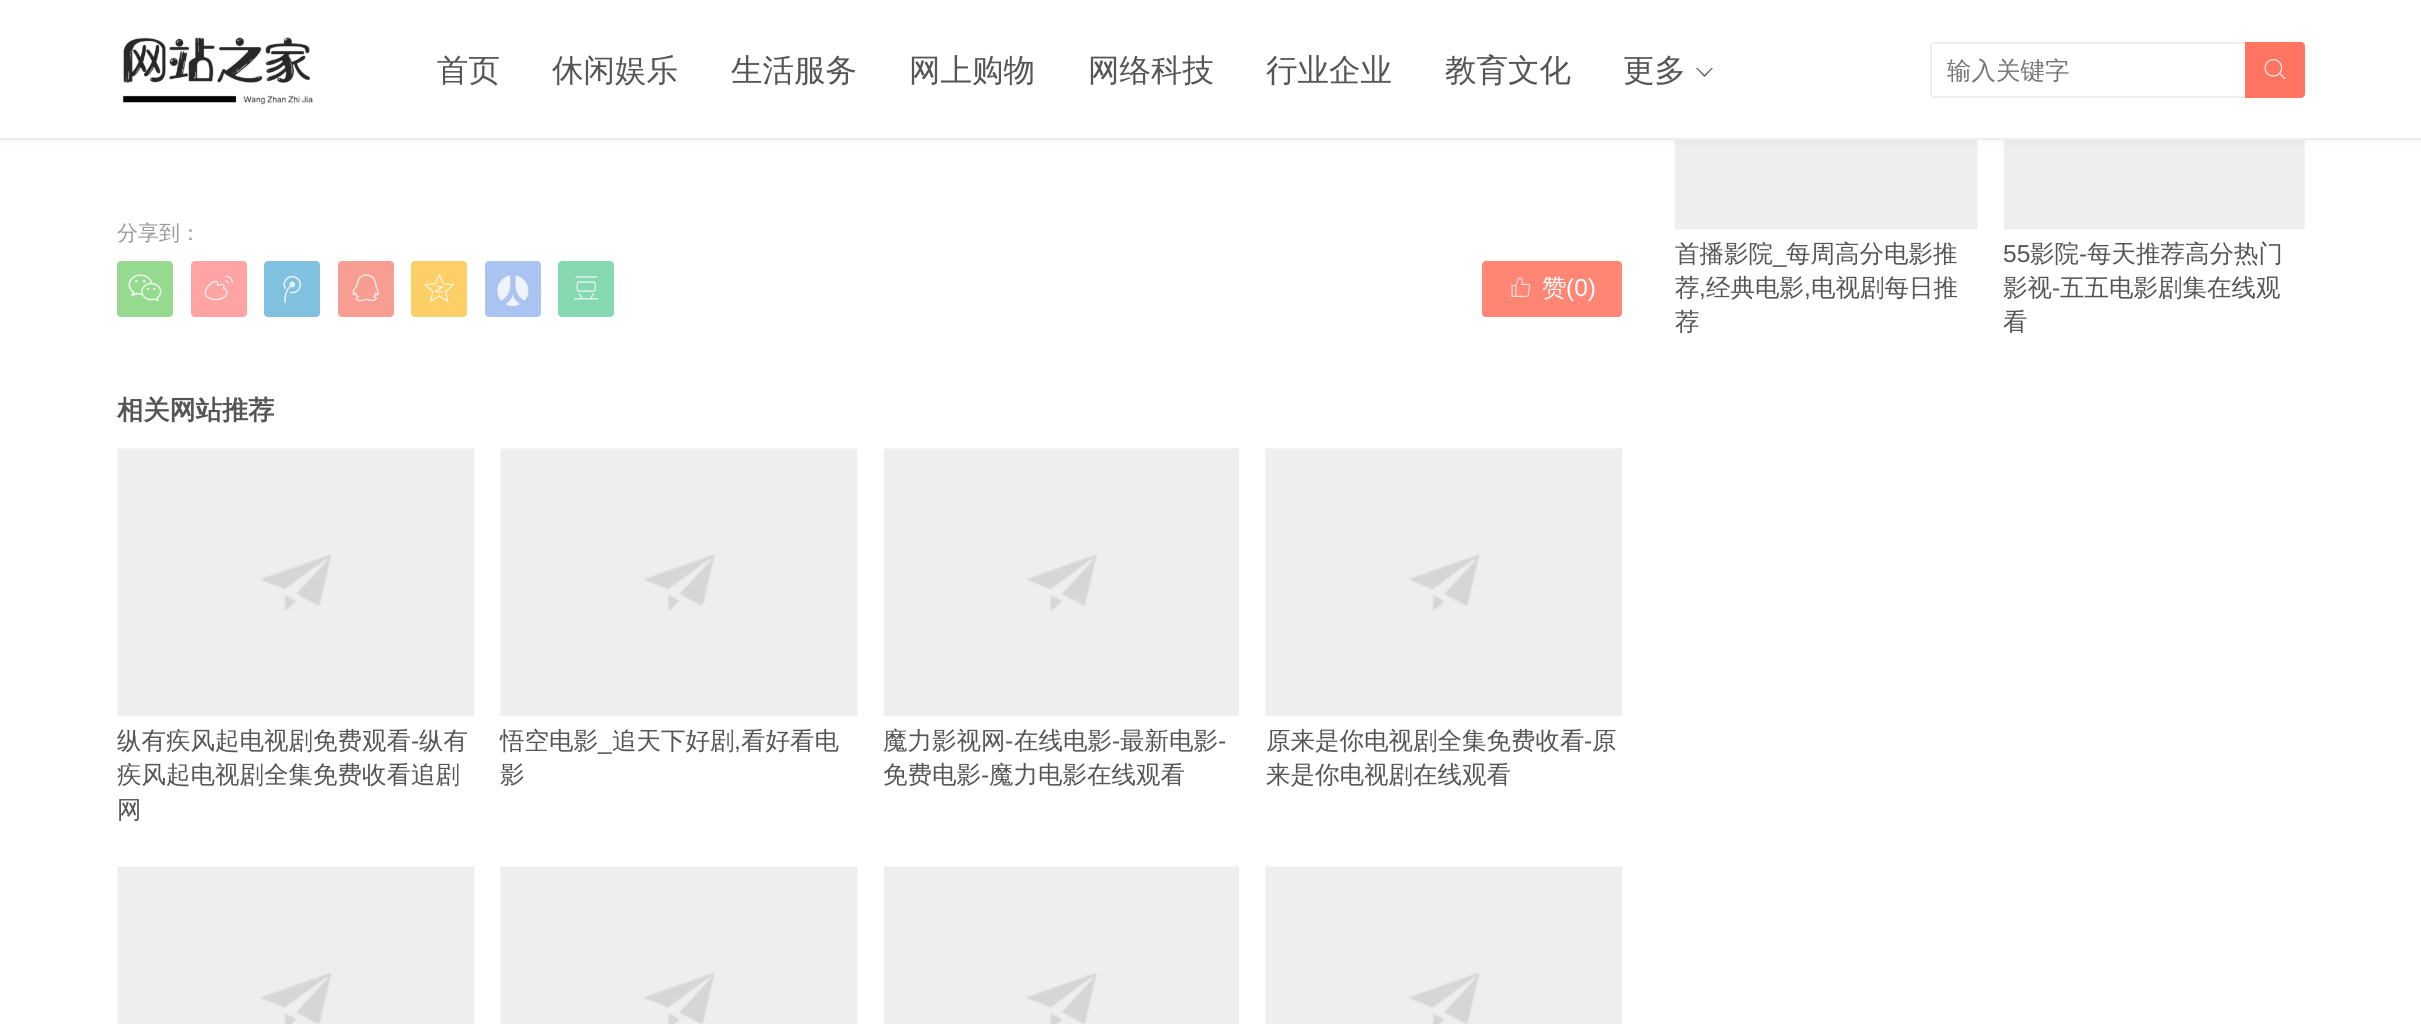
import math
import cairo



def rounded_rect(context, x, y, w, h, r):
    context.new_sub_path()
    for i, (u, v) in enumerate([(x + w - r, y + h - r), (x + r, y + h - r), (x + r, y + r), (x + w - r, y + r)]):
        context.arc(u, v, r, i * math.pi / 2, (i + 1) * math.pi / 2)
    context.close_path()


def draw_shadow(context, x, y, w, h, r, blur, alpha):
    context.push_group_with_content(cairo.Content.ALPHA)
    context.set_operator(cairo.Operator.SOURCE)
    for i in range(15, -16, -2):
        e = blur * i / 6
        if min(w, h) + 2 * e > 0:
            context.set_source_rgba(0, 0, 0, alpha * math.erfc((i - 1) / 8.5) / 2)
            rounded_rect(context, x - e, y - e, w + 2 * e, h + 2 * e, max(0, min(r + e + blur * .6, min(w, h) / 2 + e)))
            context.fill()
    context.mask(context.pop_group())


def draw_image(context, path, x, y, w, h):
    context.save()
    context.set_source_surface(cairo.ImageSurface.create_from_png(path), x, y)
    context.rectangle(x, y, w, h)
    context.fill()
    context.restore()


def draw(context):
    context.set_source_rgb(1, 1, 1)
    context.paint()
    draw_image(context, "images/19.png", 1674, 140, 304, 90)
    draw_image(context, "images/20.png", 2003, 140, 302, 90)
    context.set_source_rgb(0, 0, 0)
    draw_shadow(context, 2, 0, 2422, 140, 0, 4.5, 0.06)
    context.set_source_rgb(1, 1, 1)
    context.rectangle(0, 0, 2421, 138)
    context.fill()
    context.set_source_rgb(238 / 255, 238 / 255, 238 / 255)
    context.rectangle(0, 138, 2421, 2)
    context.fill()
    draw_image(context, "images/1.png", 122, 37, 191, 68)
    context.set_source_rgb(85 / 255, 85 / 255, 85 / 255)
    context.new_path()
    context.move_to(1696, 68)
    context.line_to(1713, 68)
    context.line_to(1704.5, 77)
    context.close_path()
    context.fill()
    context.set_source_rgb(1, 1, 1)
    context.new_path()
    context.move_to(1696, 66.5)
    context.line_to(1713, 66.5)
    context.line_to(1704.5, 75)
    context.close_path()
    context.fill()
    context.set_source_rgb(238 / 255, 238 / 255, 238 / 255)
    context.rectangle(1932, 42, 313, 2)
    context.fill()
    context.rectangle(1932, 96, 313, 2)
    context.fill()
    context.rectangle(1930, 44, 2, 52)
    context.fill()
    context.set_source_rgb(1, 117 / 255, 98 / 255)
    context.new_path()
    context.move_to(2245, 42)
    context.line_to(2301, 42)
    context.curve_to(2303, 42, 2305, 44, 2305, 46)
    context.line_to(2305, 94)
    context.curve_to(2305, 96, 2303, 98, 2301, 98)
    context.line_to(2245, 98)
    context.close_path()
    context.fill()
    draw_image(context, "images/2.png", 2264, 59, 22, 21)
    context.set_source_rgb(149 / 255, 218 / 255, 142 / 255)
    rounded_rect(context, 117, 261, 56, 56, 4)
    context.fill()
    draw_image(context, "images/3.png", 128, 274, 34, 28)
    context.set_source_rgb(1, 164 / 255, 164 / 255)
    rounded_rect(context, 191, 261, 56, 56, 4)
    context.fill()
    draw_image(context, "images/4.png", 204, 275, 29, 26)
    context.set_source_rgb(127 / 255, 193 / 255, 223 / 255)
    rounded_rect(context, 264, 261, 56, 56, 4)
    context.fill()
    draw_image(context, "images/5.png", 283, 275, 18, 28)
    context.set_source_rgb(248 / 255, 157 / 255, 145 / 255)
    rounded_rect(context, 338, 261, 56, 56, 4)
    context.fill()
    draw_image(context, "images/6.png", 352, 274, 27, 28)
    context.set_source_rgb(252 / 255, 208 / 255, 102 / 255)
    rounded_rect(context, 411, 261, 56, 56, 4)
    context.fill()
    draw_image(context, "images/7.png", 424, 273, 31, 29)
    context.set_source_rgb(170 / 255, 195 / 255, 240 / 255)
    rounded_rect(context, 485, 261, 56, 56, 4)
    context.fill()
    draw_image(context, "images/8.png", 497, 275, 32, 32)
    context.set_source_rgb(133 / 255, 216 / 255, 175 / 255)
    rounded_rect(context, 558, 261, 56, 56, 4)
    context.fill()
    draw_image(context, "images/9.png", 574, 276, 25, 24)
    context.set_source_rgb(1, 133 / 255, 116 / 255)
    rounded_rect(context, 1482, 261, 140, 56, 4)
    context.fill()
    draw_image(context, "images/10.png", 1511, 277, 19, 20)
    draw_image(context, "images/11.png", 117, 448, 358, 268)
    draw_image(context, "images/12.png", 500, 448, 358, 268)
    draw_image(context, "images/13.png", 883, 448, 356, 268)
    draw_image(context, "images/14.png", 1265, 448, 358, 268)
    draw_image(context, "images/15.png", 117, 866, 358, 158)
    draw_image(context, "images/16.png", 500, 866, 358, 158)
    draw_image(context, "images/17.png", 883, 866, 356, 158)
    draw_image(context, "images/18.png", 1265, 866, 358, 158)
    context.select_font_face("WenQuanYi Zen Hei Medium")
    context.set_font_size(31.5)
    context.set_source_rgb(85 / 255, 85 / 255, 85 / 255)
    context.move_to(437, 81)
    context.show_text("首页")
    context.move_to(552, 81)
    context.show_text("休闲娱乐")
    context.move_to(731, 81)
    context.show_text("生活服务")
    context.move_to(909, 81)
    context.show_text("网上购物")
    context.move_to(1088, 81)
    context.show_text("网络科技")
    context.move_to(1266, 81)
    context.show_text("行业企业")
    context.move_to(1445, 81)
    context.show_text("教育文化")
    context.move_to(1623, 81)
    context.show_text("更多")
    context.set_font_size(24.5)
    context.set_source_rgb(117 / 255, 117 / 255, 117 / 255)
    context.move_to(1947, 79)
    context.show_text("输入关键字")
    context.set_font_size(21)
    context.set_source_rgb(153 / 255, 153 / 255, 153 / 255)
    context.move_to(117, 240)
    context.show_text("分享到：")
    context.set_font_size(24.5)
    context.set_source_rgb(1, 1, 1)
    context.move_to(1542, 296)
    context.show_text("赞")
    context.select_font_face("Liberation Sans")
    context.move_to(1566, 296)
    context.show_text("(0)")
    context.select_font_face("WenQuanYi Zen Hei", cairo.FontSlant.NORMAL, cairo.FontWeight.BOLD)
    context.set_font_size(26.25)
    context.set_source_rgb(85 / 255, 85 / 255, 85 / 255)
    context.move_to(117, 419)
    context.show_text("相关网站推荐")
    context.select_font_face("WenQuanYi Zen Hei Medium")
    context.set_font_size(24.5)
    context.move_to(117, 749)
    context.show_text("纵有疾风起电视剧免费观看")
    context.select_font_face("Liberation Sans")
    context.move_to(411, 749)
    context.show_text("-")
    context.select_font_face("WenQuanYi Zen Hei Medium")
    context.move_to(419, 749)
    context.show_text("纵有")
    context.move_to(117, 783)
    context.show_text("疾风起电视剧全集免费收看追剧")
    context.move_to(117, 818)
    context.show_text("网")
    context.move_to(500, 749)
    context.show_text("悟空电影")
    context.select_font_face("Liberation Sans")
    context.move_to(598, 749)
    context.show_text("_")
    context.select_font_face("WenQuanYi Zen Hei Medium")
    context.move_to(612, 749)
    context.show_text("追天下好剧")
    context.select_font_face("Liberation Sans")
    context.move_to(734, 749)
    context.show_text(",")
    context.select_font_face("WenQuanYi Zen Hei Medium")
    context.move_to(741, 749)
    context.show_text("看好看电")
    context.move_to(500, 783)
    context.show_text("影")
    context.move_to(883, 749)
    context.show_text("魔力影视网")
    context.select_font_face("Liberation Sans")
    context.move_to(1005, 749)
    context.show_text("-")
    context.select_font_face("WenQuanYi Zen Hei Medium")
    context.move_to(1014, 749)
    context.show_text("在线电影")
    context.select_font_face("Liberation Sans")
    context.move_to(1112, 749)
    context.show_text("-")
    context.select_font_face("WenQuanYi Zen Hei Medium")
    context.move_to(1120, 749)
    context.show_text("最新电影")
    context.select_font_face("Liberation Sans")
    context.move_to(1218, 749)
    context.show_text("-")
    context.select_font_face("WenQuanYi Zen Hei Medium")
    context.move_to(883, 783)
    context.show_text("免费电影")
    context.select_font_face("Liberation Sans")
    context.move_to(981, 783)
    context.show_text("-")
    context.select_font_face("WenQuanYi Zen Hei Medium")
    context.move_to(989, 783)
    context.show_text("魔力电影在线观看")
    context.move_to(1266, 749)
    context.show_text("原来是你电视剧全集免费收看")
    context.select_font_face("Liberation Sans")
    context.move_to(1584, 749)
    context.show_text("-")
    context.select_font_face("WenQuanYi Zen Hei Medium")
    context.move_to(1592, 749)
    context.show_text("原")
    context.move_to(1266, 783)
    context.show_text("来是你电视剧在线观看")
    context.move_to(1675, 262)
    context.show_text("首播影院")
    context.select_font_face("Liberation Sans")
    context.move_to(1773, 262)
    context.show_text("_")
    context.select_font_face("WenQuanYi Zen Hei Medium")
    context.move_to(1786, 262)
    context.show_text("每周高分电影推")
    context.move_to(1675, 296)
    context.show_text("荐")
    context.select_font_face("Liberation Sans")
    context.move_to(1699, 296)
    context.show_text(",")
    context.select_font_face("WenQuanYi Zen Hei Medium")
    context.move_to(1706, 296)
    context.show_text("经典电影")
    context.select_font_face("Liberation Sans")
    context.move_to(1804, 296)
    context.show_text(",")
    context.select_font_face("WenQuanYi Zen Hei Medium")
    context.move_to(1811, 296)
    context.show_text("电视剧每日推")
    context.move_to(1675, 330)
    context.show_text("荐")
    context.select_font_face("Liberation Sans")
    context.move_to(2003, 262)
    context.show_text("55")
    context.select_font_face("WenQuanYi Zen Hei Medium")
    context.move_to(2030, 262)
    context.show_text("影院")
    context.select_font_face("Liberation Sans")
    context.move_to(2079, 262)
    context.show_text("-")
    context.select_font_face("WenQuanYi Zen Hei Medium")
    context.move_to(2087, 262)
    context.show_text("每天推荐高分热门")
    context.move_to(2003, 296)
    context.show_text("影视")
    context.select_font_face("Liberation Sans")
    context.move_to(2052, 296)
    context.show_text("-")
    context.select_font_face("WenQuanYi Zen Hei Medium")
    context.move_to(2060, 296)
    context.show_text("五五电影剧集在线观")
    context.move_to(2003, 330)
    context.show_text("看")


surface = cairo.ImageSurface(cairo.Format.RGB24, 2421, 1024)
context = cairo.Context(surface)
options = cairo.FontOptions()
options.set_hint_metrics(cairo.HintMetrics.OFF)
options.set_hint_style(cairo.HintStyle.NONE)
context.set_font_options(options)
context.set_miter_limit(4)
draw(context)
surface.write_to_png("out.png")
